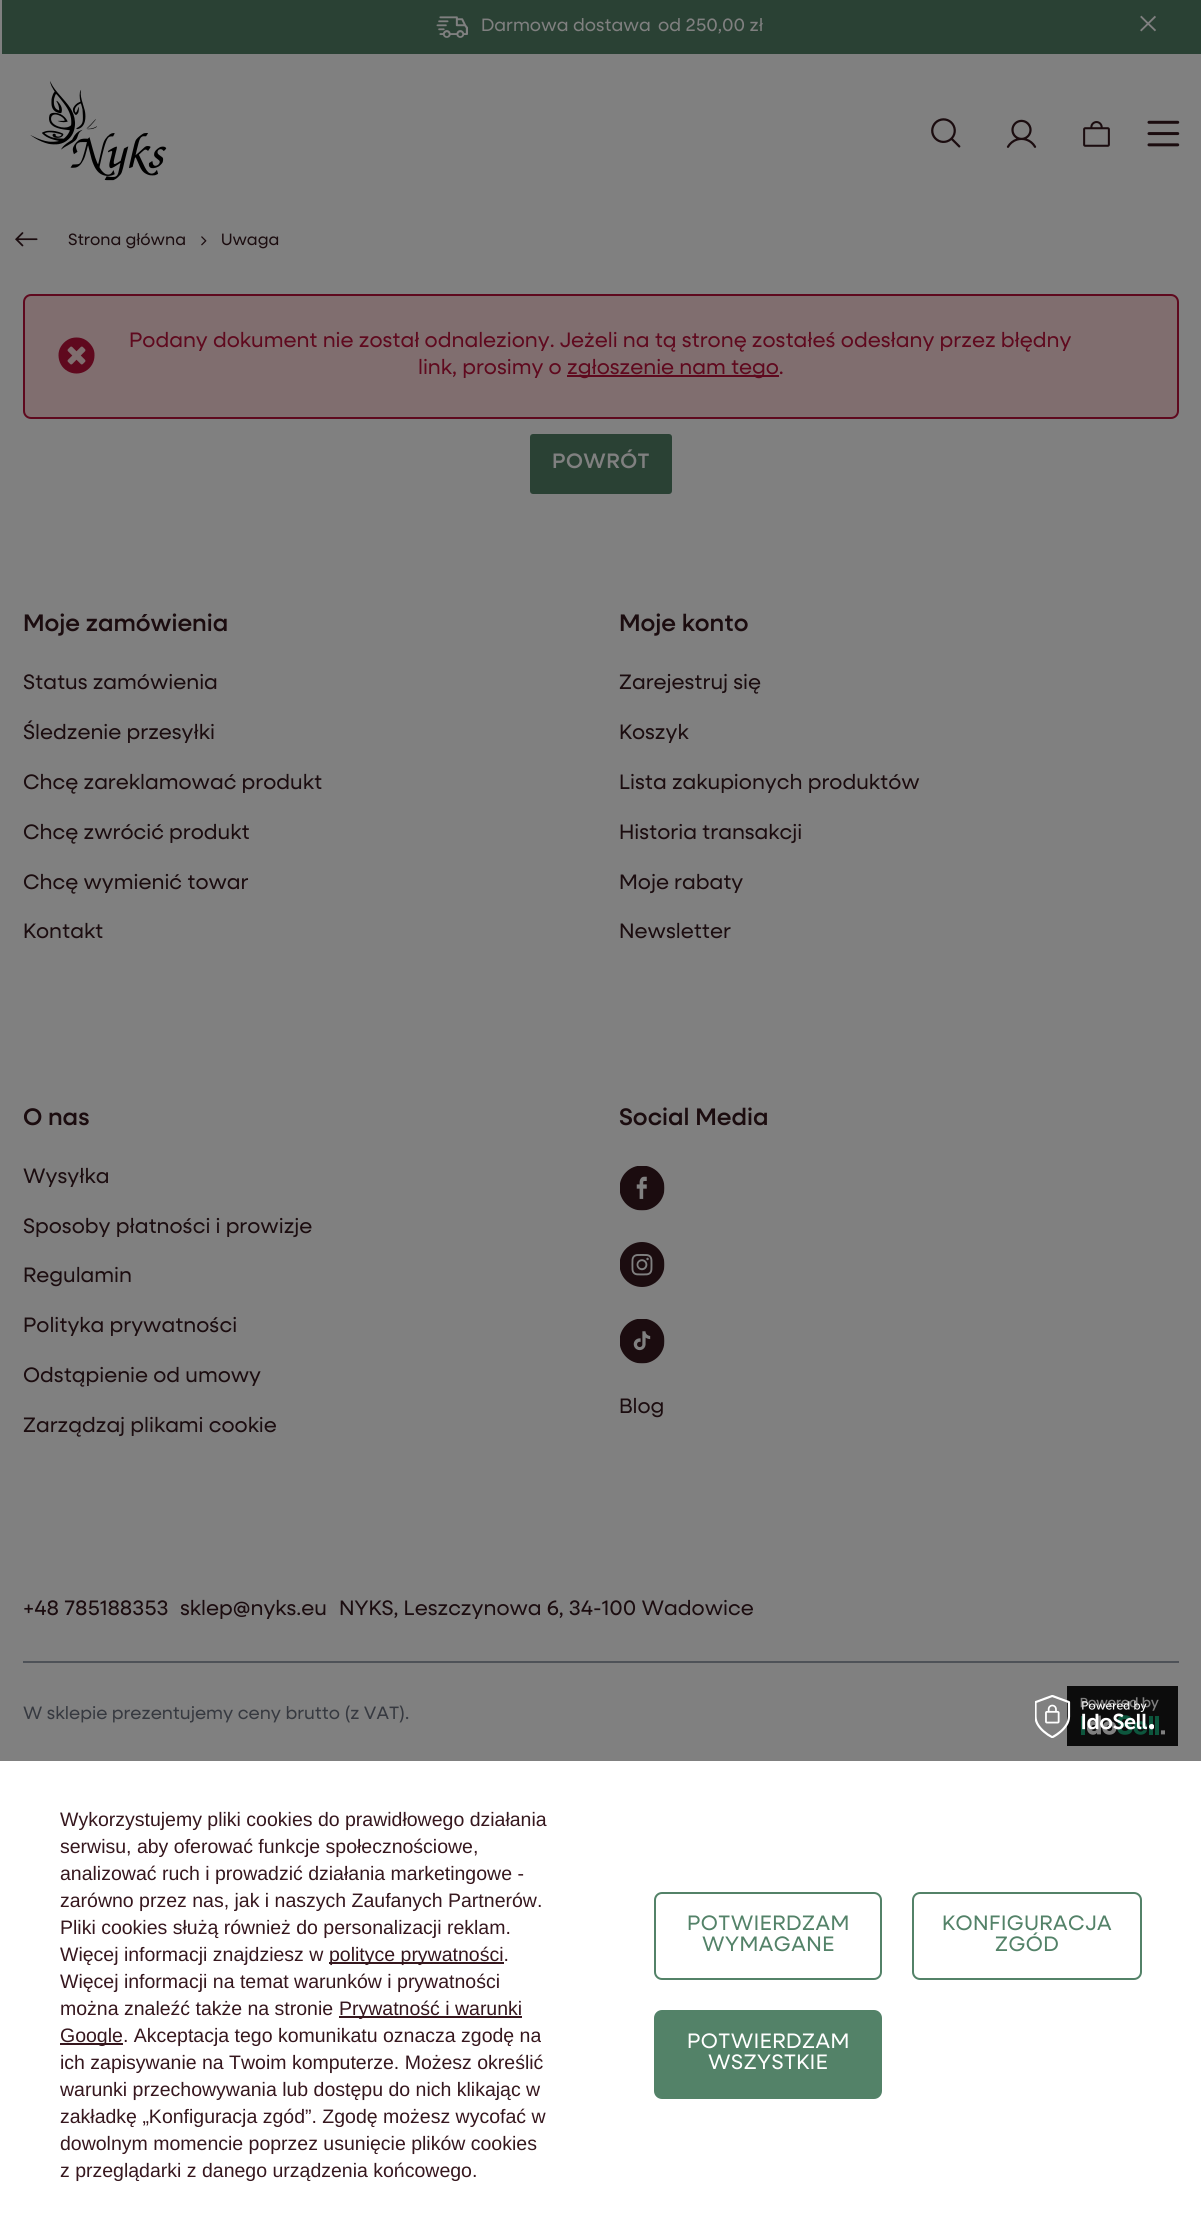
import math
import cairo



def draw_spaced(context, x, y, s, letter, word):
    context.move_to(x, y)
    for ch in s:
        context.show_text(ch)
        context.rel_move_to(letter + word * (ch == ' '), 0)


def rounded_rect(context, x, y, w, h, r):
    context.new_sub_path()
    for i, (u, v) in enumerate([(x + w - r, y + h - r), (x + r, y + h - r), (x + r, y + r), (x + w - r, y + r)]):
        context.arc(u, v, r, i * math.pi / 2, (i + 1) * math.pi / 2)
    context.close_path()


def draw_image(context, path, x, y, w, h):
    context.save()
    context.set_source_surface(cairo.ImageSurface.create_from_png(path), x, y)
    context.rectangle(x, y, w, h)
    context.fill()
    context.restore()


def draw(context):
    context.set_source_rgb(128 / 255, 128 / 255, 128 / 255)
    context.paint()
    context.set_source_rgb(42 / 255, 65 / 255, 52 / 255)
    context.rectangle(2, 0, 1199, 54)
    context.fill()
    draw_image(context, "images/1.png", 436, 16, 32, 22)
    draw_image(context, "images/2.png", 1140, 15, 16, 17)
    draw_image(context, "images/3.png", 30, 81, 137, 100)
    draw_image(context, "images/4.png", 931, 118, 30, 30)
    draw_image(context, "images/5.png", 1006, 119, 31, 29)
    draw_image(context, "images/6.png", 1083, 121, 27, 26)
    draw_image(context, "images/7.png", 1147, 120, 33, 27)
    draw_image(context, "images/8.png", 15, 232, 23, 15)
    draw_image(context, "images/9.png", 201, 236, 6, 10)
    context.set_source_rgb(128 / 255, 110 / 255, 111 / 255)
    rounded_rect(context, 24, 295, 1154, 123, 7)
    context.fill_preserve()
    context.set_source_rgb(95 / 255, 9 / 255, 30 / 255)
    context.stroke()
    draw_image(context, "images/10.png", 58, 337, 37, 37)
    context.rectangle(567, 375, 212, 2)
    context.fill()
    context.set_source_rgb(42 / 255, 65 / 255, 52 / 255)
    rounded_rect(context, 531, 435, 140, 58, 2)
    context.fill_preserve()
    context.stroke()
    draw_image(context, "images/11.png", 620, 1166, 45, 45)
    draw_image(context, "images/12.png", 620, 1242, 45, 45)
    draw_image(context, "images/13.png", 620, 1319, 45, 45)
    context.set_source_rgb(78 / 255, 82 / 255, 88 / 255)
    context.rectangle(23, 1661, 1156, 2)
    context.fill()
    draw_image(context, "images/14.png", 1067, 1686, 111, 60)
    context.set_source_rgb(1, 1, 1)
    context.rectangle(0, 1761, 1201, 468)
    context.fill()
    draw_image(context, "images/15.png", 1035, 1695, 119, 43)
    context.set_source_rgb(54 / 255, 23 / 255, 30 / 255)
    context.rectangle(329, 1962, 175, 2)
    context.fill()
    context.rectangle(339, 2016, 183, 2)
    context.fill()
    context.rectangle(60, 2043, 63, 2)
    context.fill()
    rounded_rect(context, 655, 1893, 226, 86, 7)
    context.set_source_rgb(83 / 255, 130 / 255, 104 / 255)
    context.stroke()
    rounded_rect(context, 913, 1893, 228, 86, 7)
    context.stroke()
    rounded_rect(context, 655, 2011, 226, 87, 7)
    context.fill_preserve()
    context.stroke()
    context.select_font_face("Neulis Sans")
    context.set_font_size(18)
    context.set_source_rgb(128 / 255, 128 / 255, 128 / 255)
    context.move_to(481, 31)
    context.show_text("Darmowa dostawa")
    context.move_to(658, 31)
    context.show_text("od 250,00 zł")
    context.set_font_size(16.5)
    context.set_source_rgb(27 / 255, 12 / 255, 15 / 255)
    context.move_to(68, 245)
    context.show_text("Strona główna")
    context.move_to(221, 245)
    context.show_text("Uwaga")
    context.set_font_size(21)
    context.set_source_rgb(95 / 255, 9 / 255, 30 / 255)
    context.move_to(129, 347)
    context.show_text("Podany dokument nie został odnaleziony. Jeżeli na tą stronę zostałeś odesłany przez błędny")
    context.move_to(418, 374)
    context.show_text("link, prosimy o")
    context.move_to(567, 374)
    context.show_text("zgłoszenie nam tego.")
    context.select_font_face("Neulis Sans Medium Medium")
    context.set_source_rgb(128 / 255, 128 / 255, 128 / 255)
    draw_spaced(context, 552, 468, "POWRÓT", 0.5, 0)
    context.set_font_size(24)
    context.set_source_rgb(27 / 255, 12 / 255, 15 / 255)
    context.move_to(23, 631)
    context.show_text("Moje zamówienia")
    context.select_font_face("Neulis Sans")
    context.set_font_size(21)
    context.move_to(23, 689)
    context.show_text("Status zamówienia")
    context.move_to(23, 739)
    context.show_text("Śledzenie przesyłki")
    context.move_to(23, 789)
    context.show_text("Chcę zareklamować produkt")
    context.move_to(23, 839)
    context.show_text("Chcę zwrócić produkt")
    context.move_to(23, 889)
    context.show_text("Chcę wymienić towar")
    context.move_to(23, 938)
    context.show_text("Kontakt")
    context.select_font_face("Neulis Sans Medium Medium")
    context.set_font_size(24)
    context.move_to(619, 631)
    context.show_text("Moje konto")
    context.select_font_face("Neulis Sans")
    context.set_font_size(21)
    context.move_to(619, 689)
    context.show_text("Zarejestruj się")
    context.move_to(619, 739)
    context.show_text("Koszyk")
    context.move_to(619, 789)
    context.show_text("Lista zakupionych produktów")
    context.move_to(619, 839)
    context.show_text("Historia transakcji")
    context.move_to(619, 889)
    context.show_text("Moje rabaty")
    context.move_to(619, 938)
    context.show_text("Newsletter")
    context.select_font_face("Neulis Sans Medium Medium")
    context.set_font_size(24)
    context.move_to(23, 1125)
    context.show_text("O nas")
    context.select_font_face("Neulis Sans")
    context.set_font_size(21)
    context.move_to(23, 1183)
    context.show_text("Wysyłka")
    context.move_to(23, 1233)
    context.show_text("Sposoby płatności i prowizje")
    context.move_to(23, 1282)
    context.show_text("Regulamin")
    context.move_to(23, 1332)
    context.show_text("Polityka prywatności")
    context.move_to(23, 1382)
    context.show_text("Odstąpienie od umowy")
    context.move_to(23, 1432)
    context.show_text("Zarządzaj plikami cookie")
    context.select_font_face("Neulis Sans Medium Medium")
    context.set_font_size(24)
    context.move_to(619, 1125)
    context.show_text("Social Media")
    context.select_font_face("Neulis Sans")
    context.set_font_size(21)
    context.move_to(619, 1413)
    context.show_text("Blog")
    context.move_to(23, 1615)
    context.show_text("+48 785188353")
    context.move_to(180, 1615)
    context.show_text("sklep@nyks.eu")
    context.move_to(339, 1615)
    context.show_text("NYKS, Leszczynowa 6, 34-100 Wadowice")
    context.set_font_size(18)
    context.set_source_rgb(54 / 255, 57 / 255, 64 / 255)
    context.move_to(23, 1719)
    context.show_text("W sklepie prezentujemy ceny brutto (z VAT).")
    context.select_font_face("Liberation Sans")
    context.set_font_size(19.5)
    context.set_source_rgb(54 / 255, 23 / 255, 30 / 255)
    context.move_to(60, 1826)
    context.show_text("Wykorzystujemy pliki cookies do prawidłowego działania")
    context.move_to(60, 1853)
    context.show_text("serwisu, aby oferować funkcje społecznościowe,")
    context.move_to(60, 1880)
    context.show_text("analizować ruch i prowadzić działania marketingowe -")
    context.move_to(60, 1907)
    context.show_text("zarówno przez nas, jak i naszych Zaufanych Partnerów.")
    context.move_to(60, 1934)
    context.show_text("Pliki cookies służą również do personalizacji reklam.")
    context.move_to(60, 1961)
    context.show_text("Więcej informacji znajdziesz w")
    context.move_to(329, 1961)
    context.show_text("polityce prywatności.")
    context.move_to(60, 1988)
    context.show_text("Więcej informacji na temat warunków i prywatności")
    context.move_to(60, 2015)
    context.show_text("można znaleźć także na stronie")
    context.move_to(339, 2015)
    context.show_text("Prywatność i warunki")
    context.move_to(60, 2042)
    context.show_text("Google. Akceptacja tego komunikatu oznacza zgodę na")
    context.move_to(60, 2069)
    context.show_text("ich zapisywanie na Twoim komputerze. Możesz określić")
    context.move_to(60, 2096)
    context.show_text("warunki przechowywania lub dostępu do nich klikając w")
    context.move_to(60, 2123)
    context.show_text("zakładkę „Konfiguracja zgód”. Zgodę możesz wycofać w")
    context.move_to(60, 2150)
    context.show_text("dowolnym momencie poprzez usunięcie plików cookies")
    context.move_to(60, 2177)
    context.show_text("z przeglądarki z danego urządzenia końcowego.")
    context.select_font_face("Neulis Sans")
    context.set_font_size(21)
    context.set_source_rgb(83 / 255, 130 / 255, 104 / 255)
    draw_spaced(context, 687, 1930, "POTWIERDZAM", 0.5, 0)
    draw_spaced(context, 702, 1951, "WYMAGANE", 0.5, 0)
    draw_spaced(context, 942, 1930, "KONFIGURACJA", 0.5, 0)
    draw_spaced(context, 995, 1951, "ZGÓD", 0.5, 0)
    context.set_source_rgb(1, 1, 1)
    draw_spaced(context, 687, 2048, "POTWIERDZAM", 0.5, 0)
    draw_spaced(context, 708, 2069, "WSZYSTKIE", 0.5, 0)


surface = cairo.ImageSurface(cairo.Format.RGB24, 1201, 2229)
context = cairo.Context(surface)
options = cairo.FontOptions()
options.set_hint_metrics(cairo.HintMetrics.OFF)
options.set_hint_style(cairo.HintStyle.NONE)
context.set_font_options(options)
context.set_miter_limit(4)
draw(context)
surface.write_to_png("out.png")
